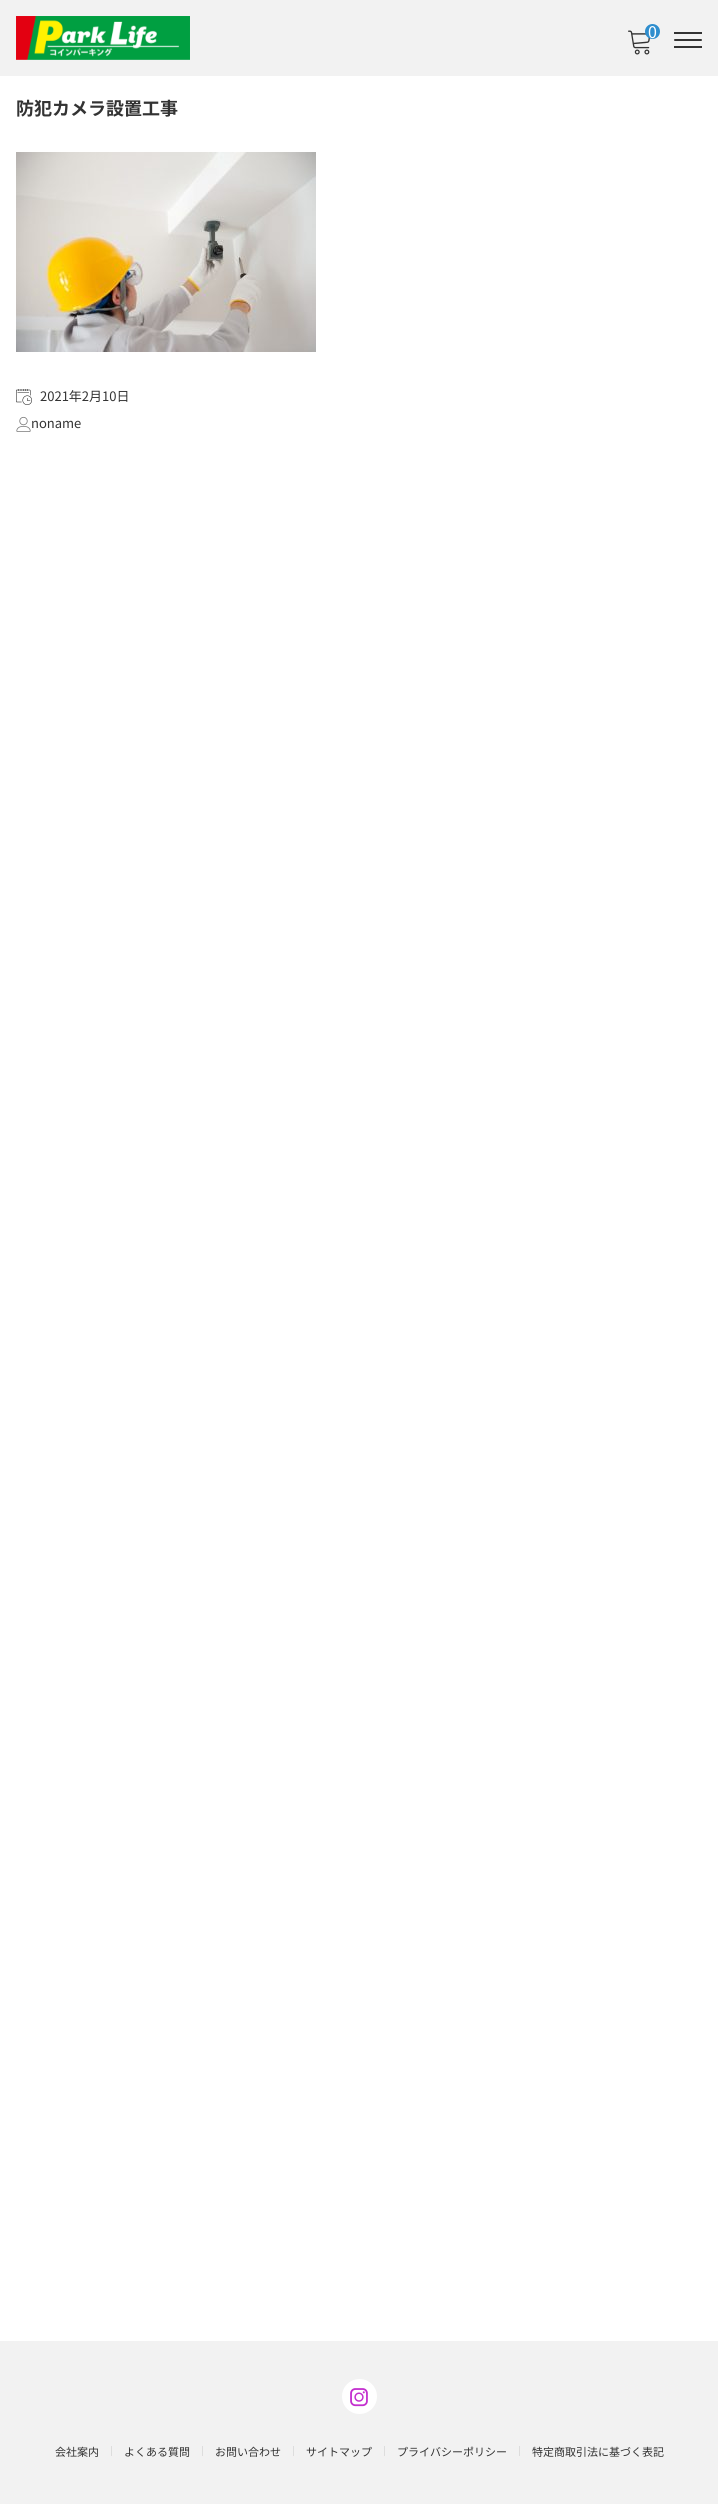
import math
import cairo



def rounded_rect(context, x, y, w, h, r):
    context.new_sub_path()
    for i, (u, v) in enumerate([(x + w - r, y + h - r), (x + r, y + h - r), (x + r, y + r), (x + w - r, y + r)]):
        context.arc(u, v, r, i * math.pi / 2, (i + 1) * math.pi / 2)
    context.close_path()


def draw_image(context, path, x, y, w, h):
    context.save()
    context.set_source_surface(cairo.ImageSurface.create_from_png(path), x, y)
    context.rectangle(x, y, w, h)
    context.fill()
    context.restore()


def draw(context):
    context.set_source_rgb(1, 1, 1)
    context.paint()
    context.set_source_rgb(242 / 255, 242 / 255, 242 / 255)
    context.rectangle(0, 0, 718, 76)
    context.fill()
    draw_image(context, "images/1.png", 16, 16, 174, 44)
    draw_image(context, "images/2.png", 628, 30, 22, 25)
    context.set_source_rgb(47 / 255, 142 / 255, 206 / 255)
    context.arc(652.5, 31.5, 7.5, 0, 2 * math.pi)
    context.fill()
    context.set_source_rgb(51 / 255, 51 / 255, 51 / 255)
    context.rectangle(674, 32, 28, 2)
    context.fill()
    rounded_rect(context, 674, 39, 28, 2, 1)
    context.fill()
    context.rectangle(674, 46, 28, 2)
    context.fill()
    draw_image(context, "images/3.png", 16, 152, 300, 200)
    draw_image(context, "images/4.png", 16, 389, 16, 16)
    draw_image(context, "images/5.png", 16, 416, 15, 16)
    context.set_source_rgb(242 / 255, 242 / 255, 242 / 255)
    context.rectangle(0, 2341, 718, 163)
    context.fill()
    context.set_source_rgb(1, 1, 1)
    context.arc(359.5, 2396.5, 17.5, 0, 2 * math.pi)
    context.fill()
    draw_image(context, "images/6.png", 350, 2388, 18, 19)
    context.set_source_rgb(221 / 255, 221 / 255, 221 / 255)
    context.rectangle(111, 2446, 1, 10)
    context.fill()
    context.rectangle(202, 2446, 1, 10)
    context.fill()
    context.rectangle(293, 2446, 1, 10)
    context.fill()
    context.rectangle(384, 2446, 1, 10)
    context.fill()
    context.rectangle(519, 2446, 1, 10)
    context.fill()
    context.select_font_face("Noto Sans JP")
    context.set_font_size(16)
    context.set_source_rgb(1, 1, 1)
    context.move_to(648, 38)
    context.show_text("0")
    context.select_font_face("Noto Sans JP", cairo.FontSlant.NORMAL, cairo.FontWeight.BOLD)
    context.set_font_size(18)
    context.set_source_rgb(51 / 255, 51 / 255, 51 / 255)
    context.move_to(16, 115)
    context.show_text("防犯カメラ設置工事")
    context.select_font_face("Noto Sans JP")
    context.set_font_size(13)
    context.move_to(40, 401)
    context.show_text("2021年2月10日")
    context.move_to(31, 428)
    context.show_text("noname")
    context.set_font_size(11)
    context.move_to(55, 2456)
    context.show_text("会社案内")
    context.move_to(124, 2456)
    context.show_text("よくある質問")
    context.move_to(215, 2456)
    context.show_text("お問い合わせ")
    context.move_to(306, 2456)
    context.show_text("サイトマップ")
    context.move_to(397, 2456)
    context.show_text("プライバシーポリシー")
    context.move_to(532, 2456)
    context.show_text("特定商取引法に基づく表記")


surface = cairo.ImageSurface(cairo.Format.RGB24, 718, 2504)
context = cairo.Context(surface)
options = cairo.FontOptions()
options.set_hint_metrics(cairo.HintMetrics.OFF)
options.set_hint_style(cairo.HintStyle.NONE)
context.set_font_options(options)
context.set_miter_limit(4)
draw(context)
surface.write_to_png("out.png")
